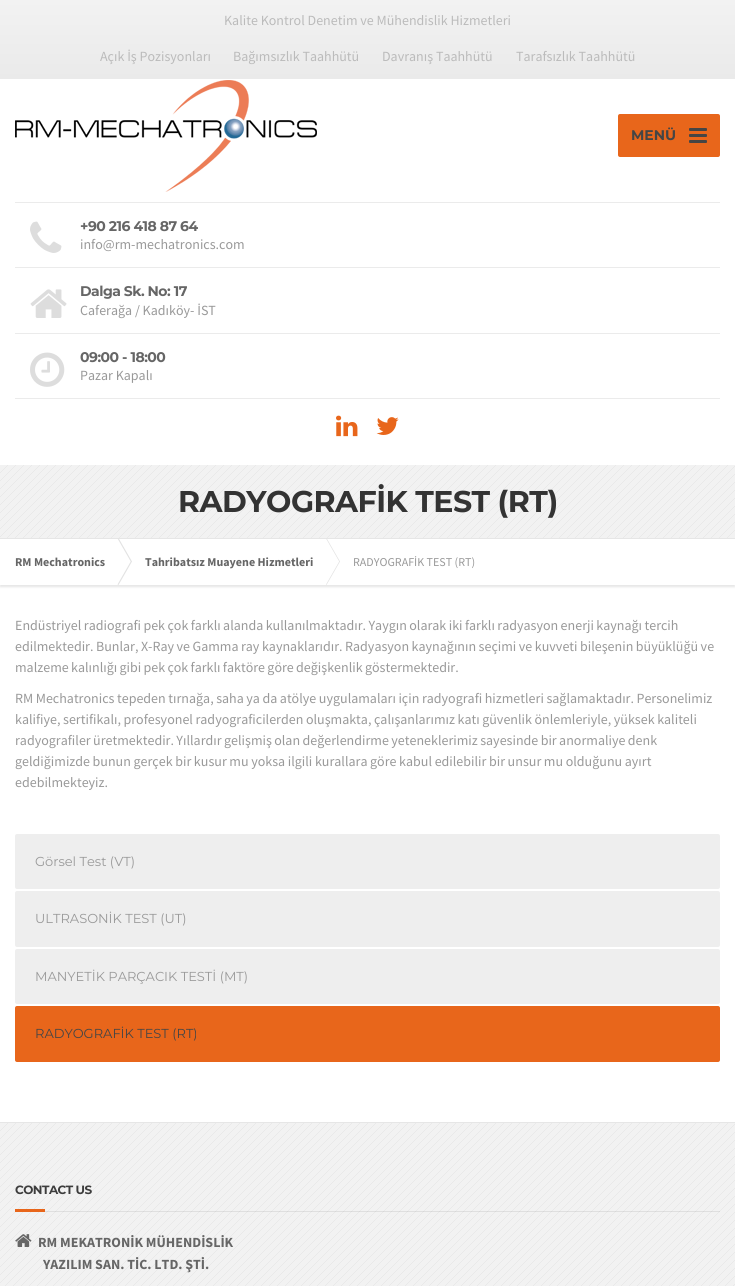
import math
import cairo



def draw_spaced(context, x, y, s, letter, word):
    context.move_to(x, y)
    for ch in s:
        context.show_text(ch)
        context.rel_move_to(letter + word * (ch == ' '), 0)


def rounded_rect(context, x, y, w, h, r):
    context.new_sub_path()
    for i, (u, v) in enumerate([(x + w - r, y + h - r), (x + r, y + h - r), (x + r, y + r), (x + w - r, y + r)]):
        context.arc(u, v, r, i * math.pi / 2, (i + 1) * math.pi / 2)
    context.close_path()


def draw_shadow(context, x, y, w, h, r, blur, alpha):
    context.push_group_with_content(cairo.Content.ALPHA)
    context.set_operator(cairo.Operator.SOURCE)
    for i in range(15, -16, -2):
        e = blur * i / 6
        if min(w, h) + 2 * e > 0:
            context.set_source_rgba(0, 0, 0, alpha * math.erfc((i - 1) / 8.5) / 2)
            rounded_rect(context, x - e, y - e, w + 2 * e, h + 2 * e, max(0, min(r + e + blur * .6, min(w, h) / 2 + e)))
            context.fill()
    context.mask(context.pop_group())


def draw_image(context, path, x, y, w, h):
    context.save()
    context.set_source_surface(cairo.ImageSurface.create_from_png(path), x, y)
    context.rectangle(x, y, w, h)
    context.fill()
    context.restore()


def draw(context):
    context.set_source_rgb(1, 1, 1)
    context.paint()
    gradient = cairo.LinearGradient(368, 0, 368, 79)
    gradient.add_color_stop_rgba(0, 242 / 255, 242 / 255, 242 / 255, 1)
    gradient.add_color_stop_rgba(1, 234 / 255, 234 / 255, 234 / 255, 1)
    context.set_source(gradient)
    context.rectangle(0, 0, 735, 79)
    context.fill()
    draw_image(context, "images/1.png", 15, 80, 302, 112)
    context.set_source_rgb(232 / 255, 102 / 255, 27 / 255)
    rounded_rect(context, 618, 114, 102, 43, 2)
    context.fill()
    context.set_source_rgb(69 / 255, 69 / 255, 69 / 255)
    rounded_rect(context, 689, 128, 18, 3, 1)
    context.fill()
    rounded_rect(context, 689, 134, 18, 3, 1)
    context.fill()
    rounded_rect(context, 689, 140, 18, 3, 1)
    context.fill()
    context.set_source_rgb(235 / 255, 235 / 255, 235 / 255)
    context.rectangle(15, 202, 705, 1)
    context.fill()
    context.rectangle(15, 267, 705, 1)
    context.fill()
    draw_image(context, "images/2.png", 30, 221, 32, 32)
    context.rectangle(15, 333, 705, 1)
    context.fill()
    draw_image(context, "images/3.png", 30, 289, 37, 29)
    context.rectangle(15, 398, 705, 1)
    context.fill()
    draw_image(context, "images/4.png", 30, 352, 35, 35)
    draw_image(context, "images/5.png", 336, 415, 22, 22)
    draw_image(context, "images/6.png", 376, 417, 23, 18)
    context.set_source_rgb(242 / 255, 242 / 255, 242 / 255)
    context.rectangle(0, 465, 735, 73)
    context.fill()
    draw_image(context, "images/7.png", 0, 465, 735, 73)
    context.set_source_rgb(230 / 255, 230 / 255, 230 / 255)
    context.rectangle(0, 538, 735, 1)
    context.fill()
    context.save()
    context.rectangle(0, 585, 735, 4)
    context.clip()
    context.set_source_rgb(230 / 255, 230 / 255, 230 / 255)
    draw_shadow(context, 0, 541, 735, 46, 0, 1, 1)
    context.restore()
    context.set_source_rgb(226 / 255, 226 / 255, 226 / 255)
    context.new_path()
    context.move_to(117.5, 538.5)
    context.line_to(118.5, 538)
    context.line_to(132, 561.5)
    context.line_to(131, 562)
    context.close_path()
    context.fill()
    context.new_path()
    context.move_to(131, 561)
    context.line_to(132, 561.5)
    context.line_to(118.5, 585)
    context.line_to(117.5, 584.5)
    context.close_path()
    context.fill()
    context.new_path()
    context.move_to(326, 538.5)
    context.line_to(326.5, 538)
    context.line_to(340, 561.5)
    context.line_to(339.5, 562)
    context.close_path()
    context.fill()
    context.new_path()
    context.move_to(339.5, 561)
    context.line_to(340, 561.5)
    context.line_to(326.5, 585)
    context.line_to(326, 584.5)
    context.close_path()
    context.fill()
    context.set_source_rgb(238 / 255, 238 / 255, 238 / 255)
    rounded_rect(context, 15, 834, 705, 55, 2)
    context.fill()
    rounded_rect(context, 15, 891, 705, 56, 2)
    context.fill()
    rounded_rect(context, 15, 949, 705, 55, 2)
    context.fill()
    context.set_source_rgb(232 / 255, 102 / 255, 27 / 255)
    rounded_rect(context, 15, 1006, 705, 56, 2)
    context.fill()
    context.set_source_rgb(242 / 255, 242 / 255, 242 / 255)
    context.rectangle(0, 1123, 735, 163)
    context.fill()
    draw_image(context, "images/8.png", 0, 1123, 735, 163)
    context.set_source_rgb(230 / 255, 230 / 255, 230 / 255)
    context.rectangle(0, 1122, 735, 1)
    context.fill()
    context.set_source_rgba(0, 0, 0, 0.08)
    context.rectangle(45, 1211, 675, 1)
    context.fill()
    context.set_source_rgb(232 / 255, 102 / 255, 27 / 255)
    context.rectangle(15, 1209, 30, 3)
    context.fill()
    draw_image(context, "images/9.png", 15, 1234, 17, 13)
    context.select_font_face("Source Sans Pro")
    context.set_font_size(14)
    context.set_source_rgb(187 / 255, 187 / 255, 187 / 255)
    context.move_to(224, 25)
    context.show_text("Kalite Kontrol Denetim ve Mühendislik Hizmetleri")
    context.move_to(100, 61)
    context.show_text("Açık İş Pozisyonları")
    context.move_to(233, 61)
    context.show_text("Bağımsızlık Taahhütü")
    context.move_to(382, 61)
    context.show_text("Davranış Taahhütü")
    context.move_to(516, 61)
    context.show_text("Tarafsızlık Taahhütü")
    context.select_font_face("Montserrat", cairo.FontSlant.NORMAL, cairo.FontWeight.BOLD)
    context.set_source_rgb(69 / 255, 69 / 255, 69 / 255)
    context.move_to(631, 140)
    context.show_text("MENÜ")
    context.set_source_rgb(102 / 255, 102 / 255, 102 / 255)
    draw_spaced(context, 80, 231, "+90 216 418 87 64", -0.5, 0)
    context.select_font_face("Source Sans Pro")
    context.set_source_rgb(153 / 255, 153 / 255, 153 / 255)
    context.move_to(80, 249)
    context.show_text("info@rm-mechatronics.com")
    context.select_font_face("Montserrat", cairo.FontSlant.NORMAL, cairo.FontWeight.BOLD)
    context.set_source_rgb(102 / 255, 102 / 255, 102 / 255)
    draw_spaced(context, 80, 296, "Dalga Sk. No: 17", -0.5, 0)
    context.select_font_face("Source Sans Pro")
    context.set_source_rgb(153 / 255, 153 / 255, 153 / 255)
    context.move_to(80, 315)
    context.show_text("Caferağa / Kadıköy- İST")
    context.select_font_face("Montserrat", cairo.FontSlant.NORMAL, cairo.FontWeight.BOLD)
    context.set_source_rgb(102 / 255, 102 / 255, 102 / 255)
    draw_spaced(context, 80, 362, "09:00 - 18:00", -0.5, 0)
    context.select_font_face("Source Sans Pro")
    context.set_source_rgb(153 / 255, 153 / 255, 153 / 255)
    context.move_to(80, 380)
    context.show_text("Pazar Kapalı")
    context.select_font_face("Montserrat", cairo.FontSlant.NORMAL, cairo.FontWeight.BOLD)
    context.set_font_size(30)
    context.set_source_rgb(51 / 255, 51 / 255, 51 / 255)
    draw_spaced(context, 178, 512, "RADYOGRAFİK TEST (RT)", -0.5, 0)
    context.select_font_face("Source Sans Pro", cairo.FontSlant.NORMAL, cairo.FontWeight.BOLD)
    context.set_font_size(12)
    context.set_source_rgb(102 / 255, 102 / 255, 102 / 255)
    context.move_to(15, 566)
    context.show_text("RM Mechatronics")
    context.move_to(145, 566)
    context.show_text("Tahribatsız Muayene Hizmetleri")
    context.select_font_face("Source Sans Pro")
    context.set_source_rgb(153 / 255, 153 / 255, 153 / 255)
    context.move_to(353, 566)
    context.show_text("RADYOGRAFİK TEST (RT)")
    context.set_font_size(14)
    draw_spaced(context, 15, 630, "Endüstriyel radiografi pek çok farklı alanda kullanılmaktadır. Yaygın olarak iki farklı radyasyon enerji kaynağı tercih", 0, -0.4)
    draw_spaced(context, 15, 651, "edilmektedir. Bunlar, X-Ray ve Gamma ray kaynaklarıdır. Radyasyon kaynağının seçimi ve kuvveti bileşenin büyüklüğü ve", 0, -0.3)
    draw_spaced(context, 15, 672, "malzeme kalınlığı gibi pek çok farklı faktöre göre değişkenlik göstermektedir.", 0, -0.5)
    draw_spaced(context, 15, 703, "RM Mechatronics tepeden tırnağa, saha ya da atölye uygulamaları için radyografi hizmetleri sağlamaktadır. Personelimiz", 0, -0.25)
    draw_spaced(context, 15, 724, "kalifiye, sertifikalı, profesyonel radyograficilerden oluşmakta, çalışanlarımız katı güvenlik önlemleriyle, yüksek kaliteli", 0, -0.25)
    draw_spaced(context, 15, 745, "radyografiler üretmektedir. Yıllardır gelişmiş olan değerlendirme yeteneklerimiz sayesinde bir anormaliye denk", 0, -0.4)
    draw_spaced(context, 15, 766, "geldiğimizde bunun gerçek bir kusur mu yoksa ilgili kurallara göre kabul edilebilir bir unsur mu olduğunu ayırt", 0, -0.2)
    context.move_to(15, 787)
    context.show_text("edebilmekteyiz.")
    context.select_font_face("Montserrat")
    context.set_font_size(13)
    context.move_to(35, 866)
    context.show_text("Görsel Test (VT)")
    context.move_to(35, 923)
    context.show_text("ULTRASONİK TEST (UT)")
    context.move_to(35, 981)
    context.show_text("MANYETİK PARÇACIK TESTİ (MT)")
    context.set_source_rgb(69 / 255, 69 / 255, 69 / 255)
    context.move_to(35, 1038)
    context.show_text("RADYOGRAFİK TEST (RT)")
    context.select_font_face("Montserrat", cairo.FontSlant.NORMAL, cairo.FontWeight.BOLD)
    context.set_font_size(12)
    context.set_source_rgb(61 / 255, 61 / 255, 61 / 255)
    draw_spaced(context, 15, 1194, "CONTACT US", -0.5, 0)
    context.select_font_face("Source Sans Pro", cairo.FontSlant.NORMAL, cairo.FontWeight.BOLD)
    context.set_font_size(14)
    context.set_source_rgb(102 / 255, 102 / 255, 102 / 255)
    context.move_to(38, 1247)
    context.show_text("RM MEKATRONİK MÜHENDİSLİK")
    context.move_to(43, 1269)
    context.show_text("YAZILIM SAN. TİC. LTD. ŞTİ.")


surface = cairo.ImageSurface(cairo.Format.RGB24, 735, 1286)
context = cairo.Context(surface)
options = cairo.FontOptions()
options.set_hint_metrics(cairo.HintMetrics.OFF)
options.set_hint_style(cairo.HintStyle.NONE)
context.set_font_options(options)
context.set_miter_limit(4)
draw(context)
surface.write_to_png("out.png")
